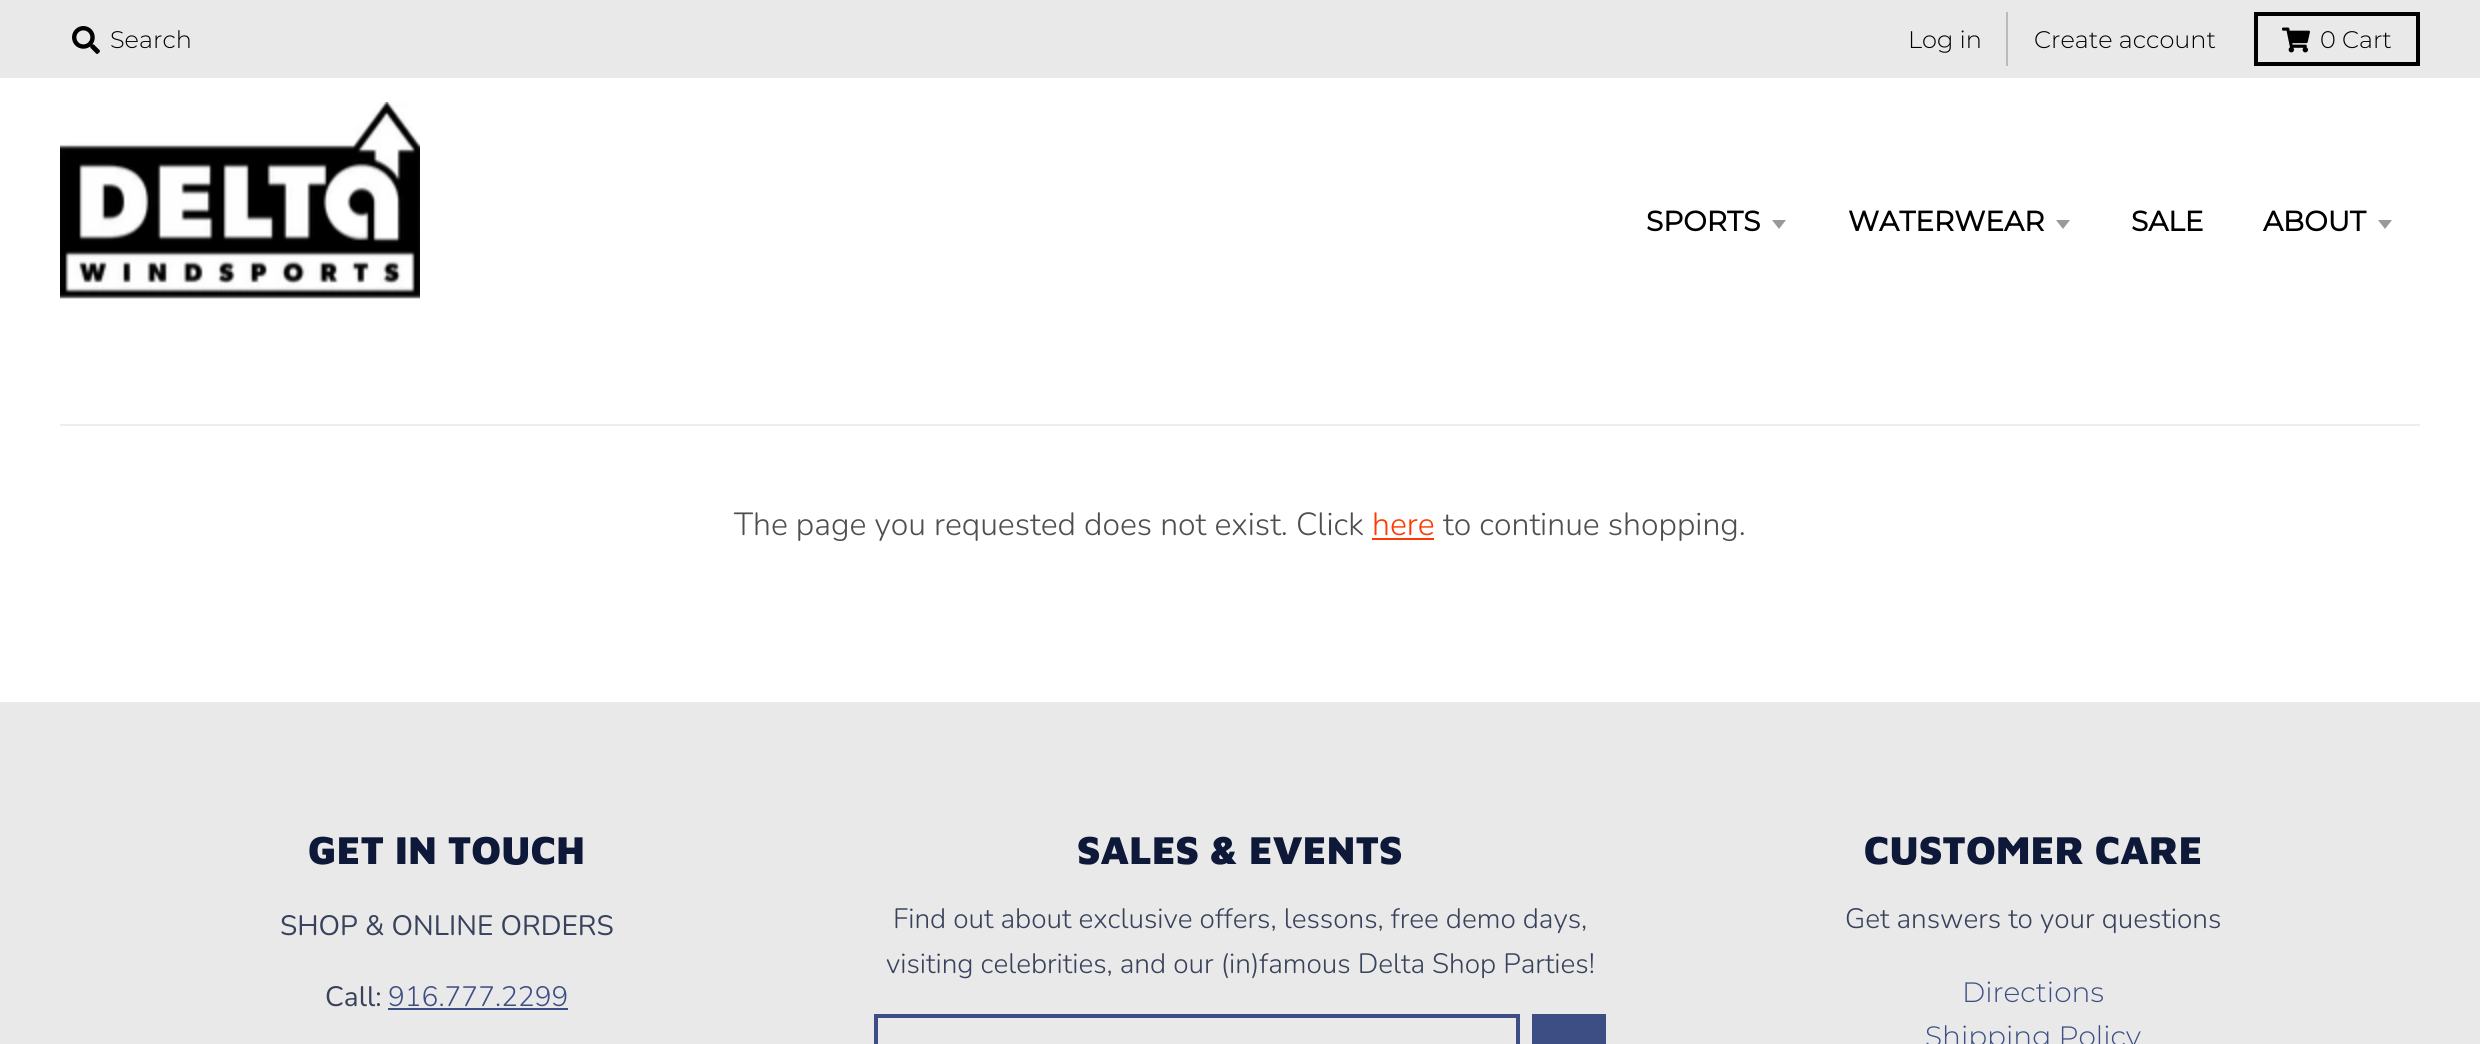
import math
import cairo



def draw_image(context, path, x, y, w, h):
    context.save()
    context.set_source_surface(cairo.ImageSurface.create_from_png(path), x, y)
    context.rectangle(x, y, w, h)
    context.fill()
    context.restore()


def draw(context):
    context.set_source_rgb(1, 1, 1)
    context.paint()
    context.set_source_rgb(233 / 255, 233 / 255, 233 / 255)
    context.rectangle(0, 0, 2480, 78)
    context.fill()
    draw_image(context, "images/1.png", 72, 26, 28, 28)
    context.set_source_rgb(186 / 255, 186 / 255, 186 / 255)
    context.rectangle(2006, 12, 2, 54)
    context.fill()
    context.rectangle(2256, 14, 162, 50)
    context.set_source_rgb(0, 0, 0)
    context.set_line_width(4)
    context.stroke()
    draw_image(context, "images/2.png", 2282, 27, 28, 26)
    draw_image(context, "images/3.png", 60, 102, 360, 197)
    context.set_source_rgb(153 / 255, 153 / 255, 153 / 255)
    context.new_path()
    context.move_to(1772, 220)
    context.line_to(1779, 229)
    context.line_to(1786, 220)
    context.close_path()
    context.fill()
    context.new_path()
    context.move_to(2056, 220)
    context.line_to(2063, 229)
    context.line_to(2070, 220)
    context.close_path()
    context.fill()
    context.new_path()
    context.move_to(2378, 220)
    context.line_to(2385, 229)
    context.line_to(2392, 220)
    context.close_path()
    context.fill()
    context.set_source_rgb(237 / 255, 237 / 255, 237 / 255)
    context.rectangle(60, 424, 2360, 2)
    context.fill()
    context.set_source_rgb(1, 57 / 255, 0)
    context.rectangle(1372, 538, 62, 2)
    context.fill()
    context.set_source_rgb(233 / 255, 233 / 255, 233 / 255)
    context.rectangle(0, 702, 2480, 342)
    context.fill()
    context.set_source_rgb(60 / 255, 78 / 255, 131 / 255)
    context.rectangle(388, 1008, 180, 2)
    context.fill()
    context.rectangle(876, 1016, 642, 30)
    context.stroke()
    context.rectangle(1532, 1014, 74, 30)
    context.fill()
    context.select_font_face("Montserrat Light")
    context.set_font_size(24)
    context.set_source_rgb(0, 0, 0)
    context.move_to(110, 48)
    context.show_text("Search")
    context.move_to(1908, 48)
    context.show_text("Log in")
    context.move_to(2034, 48)
    context.show_text("Create account")
    context.move_to(2320, 48)
    context.show_text("0 Cart")
    context.select_font_face("Montserrat", cairo.FontSlant.NORMAL, cairo.FontWeight.BOLD)
    context.set_font_size(28)
    context.move_to(1646, 231)
    context.show_text("SPORTS")
    context.move_to(1848, 231)
    context.show_text("WATERWEAR")
    context.move_to(2131, 231)
    context.show_text("SALE")
    context.move_to(2263, 231)
    context.show_text("ABOUT")
    context.select_font_face("Nunito Light")
    context.set_font_size(32)
    context.set_source_rgb(79 / 255, 79 / 255, 79 / 255)
    context.move_to(734, 535)
    context.show_text("The page you requested does not exist. Click")
    context.set_source_rgb(1, 57 / 255, 0)
    context.move_to(1372, 535)
    context.show_text("here")
    context.set_source_rgb(79 / 255, 79 / 255, 79 / 255)
    context.move_to(1443, 535)
    context.show_text("to continue shopping.")
    context.select_font_face("Maven Pro Black")
    context.set_font_size(40)
    context.set_source_rgb(14 / 255, 25 / 255, 57 / 255)
    context.move_to(308, 864)
    context.show_text("GET IN TOUCH")
    context.select_font_face("Nunito")
    context.set_font_size(28)
    context.set_source_rgb(57 / 255, 66 / 255, 92 / 255)
    context.move_to(280, 935)
    context.show_text("SHOP & ONLINE ORDERS")
    context.move_to(325, 1006)
    context.show_text("Call:")
    context.select_font_face("Nunito Light")
    context.set_source_rgb(60 / 255, 78 / 255, 131 / 255)
    context.move_to(388, 1006)
    context.show_text("916.777.2299")
    context.select_font_face("Maven Pro Black")
    context.set_font_size(40)
    context.set_source_rgb(14 / 255, 25 / 255, 57 / 255)
    context.move_to(1077, 864)
    context.show_text("SALES & EVENTS")
    context.select_font_face("Nunito Light")
    context.set_font_size(28)
    context.set_source_rgb(57 / 255, 66 / 255, 92 / 255)
    context.move_to(893, 928)
    context.show_text("Find out about exclusive offers, lessons, free demo days,")
    context.move_to(886, 973)
    context.show_text("visiting celebrities, and our (in)famous Delta Shop Parties!")
    context.select_font_face("Maven Pro Black")
    context.set_font_size(40)
    context.set_source_rgb(14 / 255, 25 / 255, 57 / 255)
    context.move_to(1864, 864)
    context.show_text("CUSTOMER CARE")
    context.select_font_face("Nunito Light")
    context.set_font_size(28)
    context.set_source_rgb(57 / 255, 66 / 255, 92 / 255)
    context.move_to(1845, 928)
    context.show_text("Get answers to your questions")
    context.select_font_face("Montserrat Light")
    context.set_source_rgb(60 / 255, 78 / 255, 131 / 255)
    context.move_to(1962, 1002)
    context.show_text("Directions")
    context.move_to(1925, 1046)
    context.show_text("Shipping Policy")


surface = cairo.ImageSurface(cairo.Format.RGB24, 2480, 1044)
context = cairo.Context(surface)
options = cairo.FontOptions()
options.set_hint_metrics(cairo.HintMetrics.OFF)
options.set_hint_style(cairo.HintStyle.NONE)
context.set_font_options(options)
context.set_miter_limit(4)
draw(context)
surface.write_to_png("out.png")
